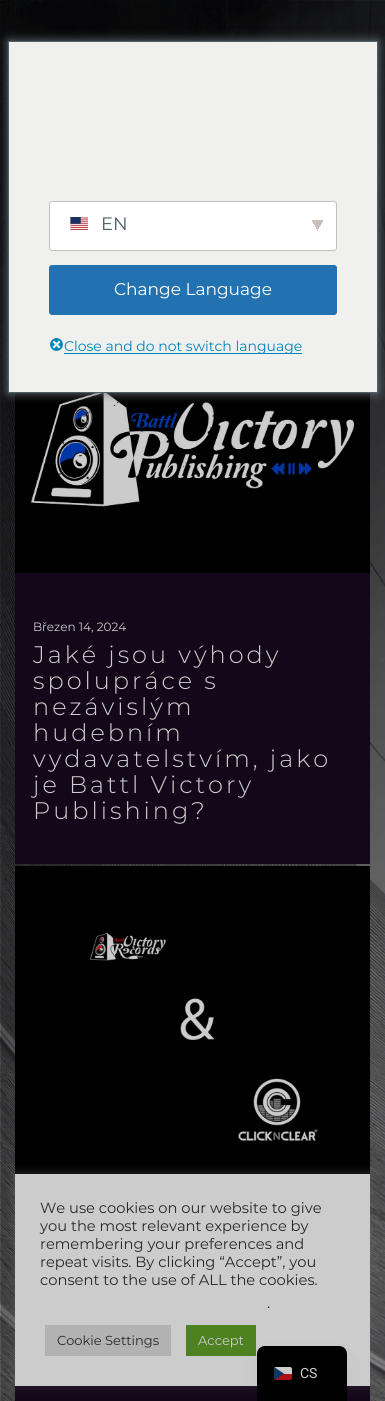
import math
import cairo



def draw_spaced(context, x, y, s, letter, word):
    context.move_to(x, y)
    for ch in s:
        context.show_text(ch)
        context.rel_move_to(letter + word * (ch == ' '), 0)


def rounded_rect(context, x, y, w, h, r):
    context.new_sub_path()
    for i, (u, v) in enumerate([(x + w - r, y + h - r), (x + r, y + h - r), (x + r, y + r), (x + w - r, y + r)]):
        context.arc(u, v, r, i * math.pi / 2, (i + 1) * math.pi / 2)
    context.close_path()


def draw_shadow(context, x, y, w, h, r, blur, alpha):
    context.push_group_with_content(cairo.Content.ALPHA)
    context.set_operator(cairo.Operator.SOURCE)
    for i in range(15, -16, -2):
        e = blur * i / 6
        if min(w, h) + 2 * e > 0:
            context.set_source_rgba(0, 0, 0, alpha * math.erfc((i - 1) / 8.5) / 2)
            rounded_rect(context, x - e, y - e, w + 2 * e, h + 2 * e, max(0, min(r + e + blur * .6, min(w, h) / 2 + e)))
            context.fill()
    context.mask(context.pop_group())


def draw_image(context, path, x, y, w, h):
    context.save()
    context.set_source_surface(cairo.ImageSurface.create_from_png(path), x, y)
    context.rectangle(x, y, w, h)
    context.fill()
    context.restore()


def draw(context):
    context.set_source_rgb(1, 1, 1)
    context.paint()
    draw_image(context, "images/1.png", 0, 0, 385, 1401)
    draw_image(context, "images/4.png", 15, 393, 355, 180)
    context.set_source_rgb(108 / 255, 119 / 255, 129 / 255)
    draw_shadow(context, 8, 41, 370, 352, 0, 5, 1)
    context.set_source_rgb(240 / 255, 240 / 255, 238 / 255)
    context.rectangle(8.5, 41.5, 369, 351)
    context.fill_preserve()
    context.set_source_rgb(76 / 255, 96 / 255, 102 / 255)
    context.set_line_width(1)
    context.stroke()
    context.set_source_rgb(1, 1, 1)
    rounded_rect(context, 49, 201, 288, 50, 3)
    context.fill()
    gradient = cairo.LinearGradient(316, 223, 325, 228)
    gradient.add_color_stop_rgba(0.5, 201 / 255, 192 / 255, 187 / 255, 1)
    gradient.add_color_stop_rgba(0.5, 1, 1, 1, 1)
    context.set_source(gradient)
    context.rectangle(318, 220, 5, 12)
    context.fill()
    gradient = cairo.LinearGradient(310, 228, 319, 223)
    gradient.add_color_stop_rgba(0.5, 1, 1, 1, 1)
    gradient.add_color_stop_rgba(0.5, 201 / 255, 192 / 255, 187 / 255, 1)
    context.set_source(gradient)
    context.rectangle(312, 220, 6, 12)
    context.fill()
    rounded_rect(context, 49.5, 201.5, 287, 49, 2.5)
    context.set_source_rgb(193 / 255, 193 / 255, 193 / 255)
    context.stroke()
    draw_image(context, "images/2.png", 70, 217, 18, 13)
    context.set_source_rgb(34 / 255, 113 / 255, 177 / 255)
    rounded_rect(context, 49.5, 265.5, 287, 49, 2.5)
    context.fill_preserve()
    context.stroke()
    draw_image(context, "images/3.png", 50, 338, 13, 13)
    context.set_source_rgb(0, 133 / 255, 186 / 255)
    context.rectangle(64, 353, 238, 1)
    context.fill()
    context.set_source_rgb(20 / 255, 7 / 255, 25 / 255)
    context.rectangle(15, 573, 355, 291)
    context.fill()
    context.rectangle(15, 1386, 355, 15)
    context.fill()
    draw_image(context, "images/5.png", 15, 866, 355, 308)
    context.set_source_rgb(138 / 255, 137 / 255, 137 / 255)
    draw_shadow(context, 15, 1173, 355, 212, 0, 5, 0.3)
    context.set_source_rgb(204 / 255, 204 / 255, 204 / 255)
    context.rectangle(15, 1174, 355, 212)
    context.fill()
    context.set_source_rgb(178 / 255, 178 / 255, 179 / 255)
    context.rectangle(45, 1325, 126, 31)
    context.fill()
    context.set_source_rgb(78 / 255, 130 / 255, 33 / 255)
    context.rectangle(186, 1325, 70, 31)
    context.fill()
    context.set_source_rgb(0, 0, 0)
    draw_shadow(context, 257, 1356, 90, 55, 8, 10, 0.05)
    context.set_source_rgb(0, 0, 0)
    context.new_path()
    context.move_to(265, 1346)
    context.line_to(339, 1346)
    context.curve_to(343.5, 1346, 347, 1349.5, 347, 1354)
    context.line_to(347, 1401)
    context.line_to(257, 1401)
    context.line_to(257, 1354)
    context.curve_to(257, 1349.5, 260.5, 1346, 265, 1346)
    context.close_path()
    context.fill()
    draw_image(context, "images/6.png", 274, 1367, 18, 13)
    context.select_font_face("Montserrat")
    context.set_font_size(18)
    context.set_source_rgb(76 / 255, 96 / 255, 102 / 255)
    context.move_to(101, 230)
    context.show_text("EN")
    context.set_font_size(17)
    context.set_source_rgb(1, 1, 1)
    context.move_to(114, 295)
    context.show_text("Change Language")
    context.set_font_size(14)
    context.set_source_rgb(0, 133 / 255, 186 / 255)
    context.move_to(64, 351)
    context.show_text("Close and do not switch language")
    context.set_font_size(12)
    context.set_source_rgb(204 / 255, 204 / 255, 204 / 255)
    context.move_to(33, 631)
    context.show_text("Březen 14, 2024")
    context.select_font_face("Montserrat Light")
    context.set_font_size(24)
    draw_spaced(context, 33, 663, "Jaké jsou výhody", 3, 0)
    draw_spaced(context, 33, 689, "spolupráce s", 3, 0)
    draw_spaced(context, 33, 715, "nezávislým", 3, 0)
    draw_spaced(context, 33, 741, "hudebním", 3, 0)
    draw_spaced(context, 33, 767, "vydavatelstvím, jako", 3, 0)
    draw_spaced(context, 33, 793, "je Battl Victory", 3, 0)
    draw_spaced(context, 33, 819, "Publishing?", 3, 0)
    context.select_font_face("Montserrat")
    context.set_font_size(14.7)
    context.set_source_rgb(41 / 255, 41 / 255, 41 / 255)
    context.move_to(40, 1213)
    context.show_text("We use cookies on our website to give")
    context.move_to(40, 1231)
    context.show_text("you the most relevant experience by")
    context.move_to(40, 1249)
    context.show_text("remembering your preferences and")
    context.move_to(40, 1267)
    context.show_text("repeat visits. By clicking “Accept”, you")
    context.move_to(40, 1285)
    context.show_text("consent to the use of ALL the cookies.")
    context.move_to(267, 1308)
    context.show_text(".")
    context.set_font_size(13)
    context.move_to(57, 1345)
    context.show_text("Cookie Settings")
    context.set_source_rgb(204 / 255, 204 / 255, 204 / 255)
    context.move_to(198, 1345)
    context.show_text("Accept")
    context.select_font_face("Roboto")
    context.set_font_size(14)
    context.move_to(300, 1378)
    context.show_text("CS")


surface = cairo.ImageSurface(cairo.Format.RGB24, 385, 1401)
context = cairo.Context(surface)
options = cairo.FontOptions()
options.set_hint_metrics(cairo.HintMetrics.OFF)
options.set_hint_style(cairo.HintStyle.NONE)
context.set_font_options(options)
context.set_miter_limit(4)
draw(context)
surface.write_to_png("out.png")
